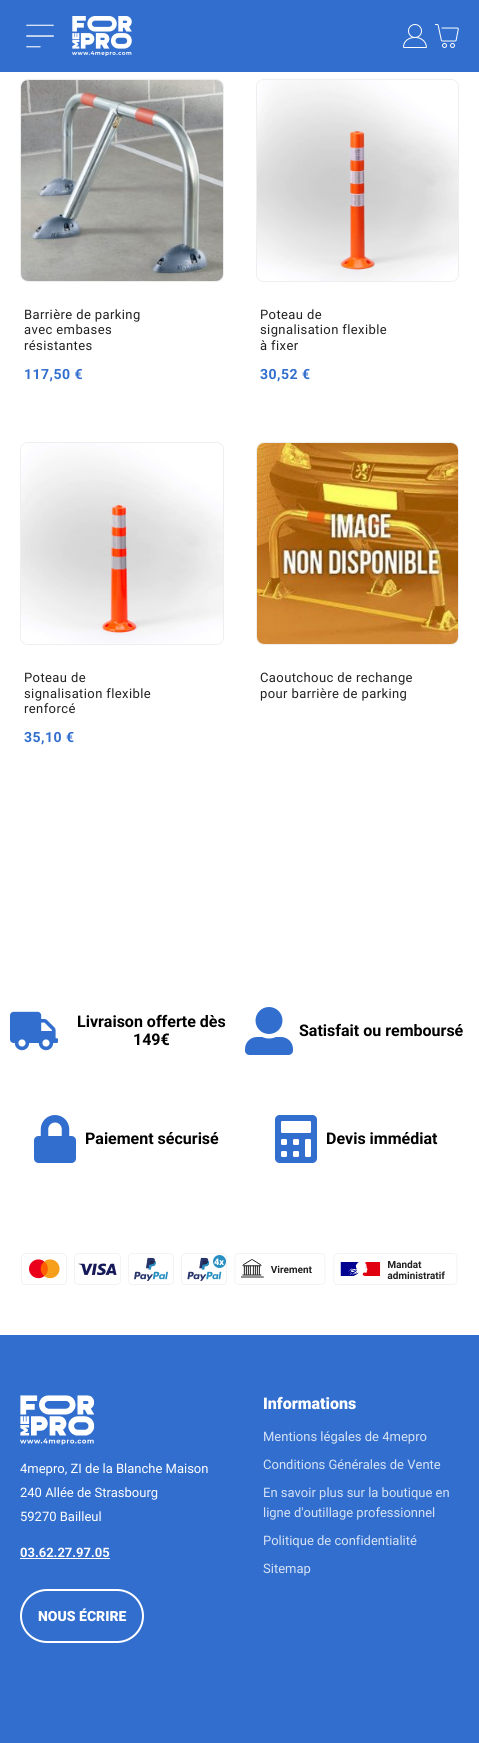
import math
import cairo



def draw_spaced(context, x, y, s, letter, word):
    context.move_to(x, y)
    for ch in s:
        context.show_text(ch)
        context.rel_move_to(letter + word * (ch == ' '), 0)


def rounded_rect(context, x, y, w, h, r):
    context.new_sub_path()
    for i, (u, v) in enumerate([(x + w - r, y + h - r), (x + r, y + h - r), (x + r, y + r), (x + w - r, y + r)]):
        context.arc(u, v, r, i * math.pi / 2, (i + 1) * math.pi / 2)
    context.close_path()


def draw_image(context, path, x, y, w, h):
    context.save()
    context.set_source_surface(cairo.ImageSurface.create_from_png(path), x, y)
    context.rectangle(x, y, w, h)
    context.fill()
    context.restore()


def draw(context):
    context.set_source_rgb(1, 1, 1)
    context.paint()
    context.set_source_rgb(49 / 255, 110 / 255, 206 / 255)
    context.rectangle(0, 0, 479, 72)
    context.fill()
    draw_image(context, "images/1.png", 26, 24, 28, 24)
    draw_image(context, "images/2.png", 72, 16, 60, 40)
    context.arc(415, 31, 6.5, 0, 2 * math.pi)
    context.set_source_rgb(1, 1, 1)
    context.set_line_width(1)
    context.stroke()
    context.new_path()
    context.move_to(403.5, 47)
    context.curve_to(403.5, 35, 425, 33.5, 426.5, 47)
    context.line_to(426, 47.5)
    context.line_to(404, 47.5)
    context.close_path()
    context.stroke()
    draw_image(context, "images/3.png", 435, 24, 24, 24)
    rounded_rect(context, 20.5, 79.5, 203, 202, 7.5)
    context.set_source_rgb(238 / 255, 238 / 255, 238 / 255)
    context.stroke()
    draw_image(context, "images/4.png", 21, 80, 202, 201)
    rounded_rect(context, 256.5, 79.5, 202, 202, 7.5)
    context.stroke()
    draw_image(context, "images/5.png", 257, 80, 201, 201)
    rounded_rect(context, 20.5, 442.5, 203, 202, 7.5)
    context.stroke()
    draw_image(context, "images/6.png", 21, 443, 202, 201)
    rounded_rect(context, 256.5, 442.5, 202, 202, 7.5)
    context.stroke()
    draw_image(context, "images/7.png", 257, 443, 201, 201)
    draw_image(context, "images/8.png", 10, 1011, 48, 40)
    draw_image(context, "images/9.png", 245, 1007, 48, 48)
    draw_image(context, "images/10.png", 34, 1115, 42, 48)
    draw_image(context, "images/11.png", 275, 1115, 42, 48)
    draw_image(context, "images/12.png", 21, 1253, 46, 32)
    draw_image(context, "images/13.png", 74, 1253, 47, 32)
    draw_image(context, "images/14.png", 128, 1253, 46, 32)
    draw_image(context, "images/15.png", 181, 1253, 46, 32)
    draw_image(context, "images/16.png", 234, 1253, 224, 32)
    context.set_source_rgb(49 / 255, 110 / 255, 206 / 255)
    context.rectangle(0, 1335, 479, 408)
    context.fill()
    draw_image(context, "images/17.png", 20, 1395, 75, 50)
    context.set_source_rgb(1, 1, 1)
    context.rectangle(20, 1558, 90, 1)
    context.fill()
    rounded_rect(context, 21, 1590, 122, 52, 26)
    context.set_line_width(2)
    context.stroke()
    context.select_font_face("Roboto")
    context.set_font_size(13)
    context.set_source_rgb(34 / 255, 34 / 255, 34 / 255)
    draw_spaced(context, 24, 319, "Barrière de parking", 0.4, 0)
    draw_spaced(context, 24, 334, "avec embases", 0.4, 0)
    draw_spaced(context, 24, 350, "résistantes", 0.4, 0)
    context.select_font_face("Roboto", cairo.FontSlant.NORMAL, cairo.FontWeight.BOLD)
    context.set_font_size(14)
    context.set_source_rgb(49 / 255, 110 / 255, 206 / 255)
    draw_spaced(context, 24, 379, "117,50 €", 0.5, 0)
    context.select_font_face("Roboto")
    context.set_font_size(13)
    context.set_source_rgb(34 / 255, 34 / 255, 34 / 255)
    draw_spaced(context, 260, 319, "Poteau de", 0.4, 0)
    draw_spaced(context, 260, 334, "signalisation flexible", 0.4, 0)
    draw_spaced(context, 260, 350, "à fixer", 0.4, 0)
    context.select_font_face("Roboto", cairo.FontSlant.NORMAL, cairo.FontWeight.BOLD)
    context.set_font_size(14)
    context.set_source_rgb(49 / 255, 110 / 255, 206 / 255)
    draw_spaced(context, 260, 379, "30,52 €", 0.5, 0)
    context.select_font_face("Roboto")
    context.set_font_size(13)
    context.set_source_rgb(34 / 255, 34 / 255, 34 / 255)
    draw_spaced(context, 24, 682, "Poteau de", 0.4, 0)
    draw_spaced(context, 24, 698, "signalisation flexible", 0.4, 0)
    draw_spaced(context, 24, 713, "renforcé", 0.4, 0)
    context.select_font_face("Roboto", cairo.FontSlant.NORMAL, cairo.FontWeight.BOLD)
    context.set_font_size(14)
    context.set_source_rgb(49 / 255, 110 / 255, 206 / 255)
    draw_spaced(context, 24, 742, "35,10 €", 0.5, 0)
    context.select_font_face("Roboto")
    context.set_font_size(13)
    context.set_source_rgb(34 / 255, 34 / 255, 34 / 255)
    draw_spaced(context, 260, 682, "Caoutchouc de rechange", 0.4, 0)
    draw_spaced(context, 260, 698, "pour barrière de parking", 0.4, 0)
    context.select_font_face("Roboto", cairo.FontSlant.NORMAL, cairo.FontWeight.BOLD)
    context.set_font_size(16)
    context.set_source_rgb(0, 0, 0)
    context.move_to(77, 1027)
    context.show_text("Livraison offerte dès")
    context.move_to(133, 1045)
    context.show_text("149€")
    context.move_to(299, 1036)
    context.show_text("Satisfait ou remboursé")
    context.move_to(85, 1144)
    context.show_text("Paiement sécurisé")
    context.move_to(326, 1144)
    context.show_text("Devis immédiat")
    context.select_font_face("Roboto")
    context.set_font_size(13)
    context.set_source_rgb(1, 1, 1)
    context.move_to(20, 1473)
    context.show_text("4mepro, ZI de la Blanche Maison")
    context.move_to(20, 1497)
    context.show_text("240 Allée de Strasbourg")
    context.move_to(20, 1521)
    context.show_text("59270 Bailleul")
    context.select_font_face("Roboto", cairo.FontSlant.NORMAL, cairo.FontWeight.BOLD)
    context.move_to(20, 1557)
    context.show_text("03.62.27.97.05")
    context.select_font_face("Roboto Black")
    context.set_font_size(14)
    context.move_to(38, 1621)
    context.show_text("NOUS ÉCRIRE")
    context.set_font_size(16)
    context.move_to(263, 1409)
    context.show_text("Informations")
    context.select_font_face("Roboto")
    context.set_font_size(13)
    context.set_source_rgb(214 / 255, 226 / 255, 245 / 255)
    context.move_to(263, 1441)
    context.show_text("Mentions légales de 4mepro")
    context.move_to(263, 1469)
    context.show_text("Conditions Générales de Vente")
    context.move_to(263, 1497)
    context.show_text("En savoir plus sur la boutique en")
    context.move_to(263, 1517)
    context.show_text("ligne d'outillage professionnel")
    context.move_to(263, 1545)
    context.show_text("Politique de confidentialité")
    context.move_to(263, 1573)
    context.show_text("Sitemap")


surface = cairo.ImageSurface(cairo.Format.RGB24, 479, 1743)
context = cairo.Context(surface)
options = cairo.FontOptions()
options.set_hint_metrics(cairo.HintMetrics.OFF)
options.set_hint_style(cairo.HintStyle.NONE)
context.set_font_options(options)
context.set_miter_limit(4)
draw(context)
surface.write_to_png("out.png")
